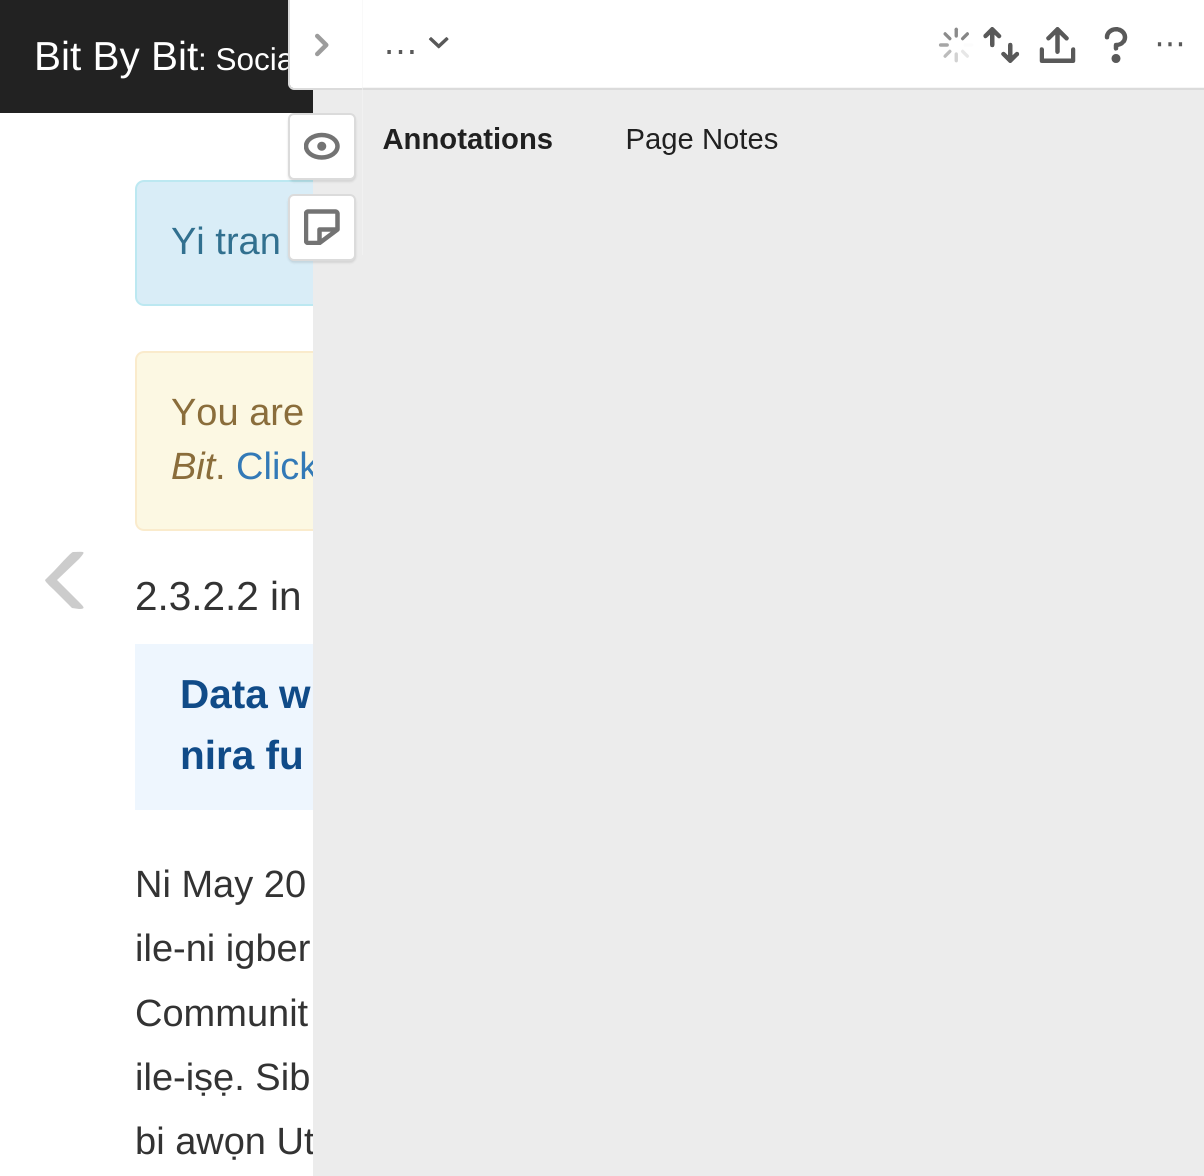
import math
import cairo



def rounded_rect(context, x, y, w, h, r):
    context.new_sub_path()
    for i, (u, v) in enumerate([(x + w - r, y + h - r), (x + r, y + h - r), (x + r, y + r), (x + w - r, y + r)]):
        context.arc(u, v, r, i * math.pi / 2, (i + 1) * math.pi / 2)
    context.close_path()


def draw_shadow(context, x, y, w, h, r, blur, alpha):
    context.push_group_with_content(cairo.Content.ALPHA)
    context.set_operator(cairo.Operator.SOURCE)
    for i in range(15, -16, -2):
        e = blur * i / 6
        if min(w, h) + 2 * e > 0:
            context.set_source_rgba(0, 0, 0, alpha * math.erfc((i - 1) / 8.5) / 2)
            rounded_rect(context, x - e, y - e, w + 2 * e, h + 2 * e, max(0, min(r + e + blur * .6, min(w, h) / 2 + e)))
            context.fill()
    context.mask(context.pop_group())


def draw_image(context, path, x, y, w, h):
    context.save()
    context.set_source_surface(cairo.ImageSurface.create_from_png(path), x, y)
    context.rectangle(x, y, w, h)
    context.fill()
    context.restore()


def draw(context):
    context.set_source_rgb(1, 1, 1)
    context.paint()
    context.set_source_rgb(34 / 255, 34 / 255, 34 / 255)
    context.rectangle(0, 0, 313, 113)
    context.fill()
    context.set_source_rgb(217 / 255, 237 / 255, 247 / 255)
    rounded_rect(context, 136, 181, 934, 124, 8)
    context.fill_preserve()
    context.set_source_rgb(188 / 255, 232 / 255, 241 / 255)
    context.stroke()
    context.set_source_rgb(252 / 255, 248 / 255, 227 / 255)
    rounded_rect(context, 136, 352, 934, 178, 8)
    context.fill_preserve()
    context.set_source_rgb(250 / 255, 235 / 255, 204 / 255)
    context.stroke()
    context.set_source_rgb(204 / 255, 204 / 255, 204 / 255)
    context.new_path()
    context.move_to(73, 552)
    context.curve_to(84, 552, 87, 550, 79, 559)
    context.line_to(57, 580)
    context.line_to(79, 602)
    context.curve_to(84, 607, 86, 609, 79, 609)
    context.line_to(72, 608)
    context.line_to(54, 590)
    context.curve_to(53, 589, 45, 582, 45, 580)
    context.line_to(54, 571)
    context.curve_to(57, 568, 71, 552, 73, 552)
    context.close_path()
    context.fill()
    context.set_source_rgb(238 / 255, 246 / 255, 254 / 255)
    context.rectangle(135, 644, 178, 166)
    context.fill()
    context.set_source_rgb(1, 1, 1)
    context.new_path()
    context.move_to(290, 0)
    context.line_to(362, 0)
    context.line_to(362, 88)
    context.line_to(293, 88)
    context.curve_to(291.5, 88, 290, 86.5, 290, 85)
    context.close_path()
    context.fill()
    draw_image(context, "images/4.png", 362, 0, 842, 1176)
    context.select_font_face("Liberation Sans")
    context.set_font_size(40.5)
    context.move_to(34, 70)
    context.show_text("Bit By Bit")
    context.set_font_size(31.5)
    context.move_to(198, 70)
    context.show_text(": Socia")
    context.set_font_size(38)
    context.set_source_rgb(49 / 255, 112 / 255, 143 / 255)
    context.move_to(171, 254)
    context.show_text("Yi tran")
    context.set_source_rgb(138 / 255, 109 / 255, 59 / 255)
    context.move_to(171, 425)
    context.show_text("You are")
    context.select_font_face("Liberation Sans", cairo.FontSlant.ITALIC)
    context.move_to(171, 479)
    context.show_text("Bit")
    context.select_font_face("Liberation Sans")
    context.move_to(215, 479)
    context.show_text(".")
    context.set_source_rgb(51 / 255, 122 / 255, 183 / 255)
    context.move_to(236, 479)
    context.show_text("Click")
    context.set_font_size(40.5)
    context.set_source_rgb(51 / 255, 51 / 255, 51 / 255)
    context.move_to(135, 610)
    context.show_text("2.3.2.2 in")
    context.select_font_face("Liberation Sans", cairo.FontSlant.NORMAL, cairo.FontWeight.BOLD)
    context.set_source_rgb(16 / 255, 75 / 255, 136 / 255)
    context.move_to(180, 708)
    context.show_text("Data w")
    context.move_to(180, 769)
    context.show_text("nira fu")
    context.select_font_face("Liberation Sans")
    context.set_font_size(38)
    context.set_source_rgb(51 / 255, 51 / 255, 51 / 255)
    context.move_to(135, 897)
    context.show_text("Ni May 20")
    context.move_to(135, 961)
    context.show_text("ile-ni igber")
    context.move_to(135, 1026)
    context.show_text("Communit")
    context.move_to(135, 1090)
    context.show_text("ile-iṣẹ. Sib")
    context.move_to(135, 1154)
    context.show_text("bi awọn Ut")
    context.set_source_rgb(236 / 255, 236 / 255, 236 / 255)
    context.rectangle(313, 90, 49, 1086)
    context.fill()
    context.set_source_rgb(219 / 255, 219 / 255, 219 / 255)
    context.set_fill_rule(cairo.FillRule.EVEN_ODD)
    context.new_path()
    context.move_to(288, 0)
    context.line_to(362, 0)
    context.line_to(362, 90)
    context.line_to(294, 90)
    context.curve_to(291, 90, 288, 87, 288, 84)
    context.close_path()
    context.move_to(290, 0)
    context.line_to(362, 0)
    context.line_to(362, 88)
    context.line_to(294, 88)
    context.curve_to(292, 88, 290, 86, 290, 84)
    context.close_path()
    context.fill()
    draw_image(context, "images/1.png", 315, 33, 14, 24)
    context.set_source_rgb(0, 0, 0)
    draw_shadow(context, 288, 115, 68, 67, 6, 1, 0.1)
    context.set_source_rgb(1, 1, 1)
    rounded_rect(context, 289, 114, 66, 65, 5)
    context.fill_preserve()
    context.set_source_rgb(219 / 255, 219 / 255, 219 / 255)
    context.stroke()
    draw_image(context, "images/2.png", 304, 132, 36, 28)
    context.set_source_rgb(0, 0, 0)
    draw_shadow(context, 288, 196, 68, 67, 6, 1, 0.1)
    context.set_source_rgb(1, 1, 1)
    rounded_rect(context, 289, 195, 66, 65, 5)
    context.fill_preserve()
    context.set_source_rgb(219 / 255, 219 / 255, 219 / 255)
    context.stroke()
    draw_image(context, "images/3.png", 304, 209, 36, 36)


surface = cairo.ImageSurface(cairo.Format.RGB24, 1204, 1176)
context = cairo.Context(surface)
options = cairo.FontOptions()
options.set_hint_metrics(cairo.HintMetrics.OFF)
options.set_hint_style(cairo.HintStyle.NONE)
context.set_font_options(options)
context.set_miter_limit(4)
draw(context)
surface.write_to_png("out.png")
